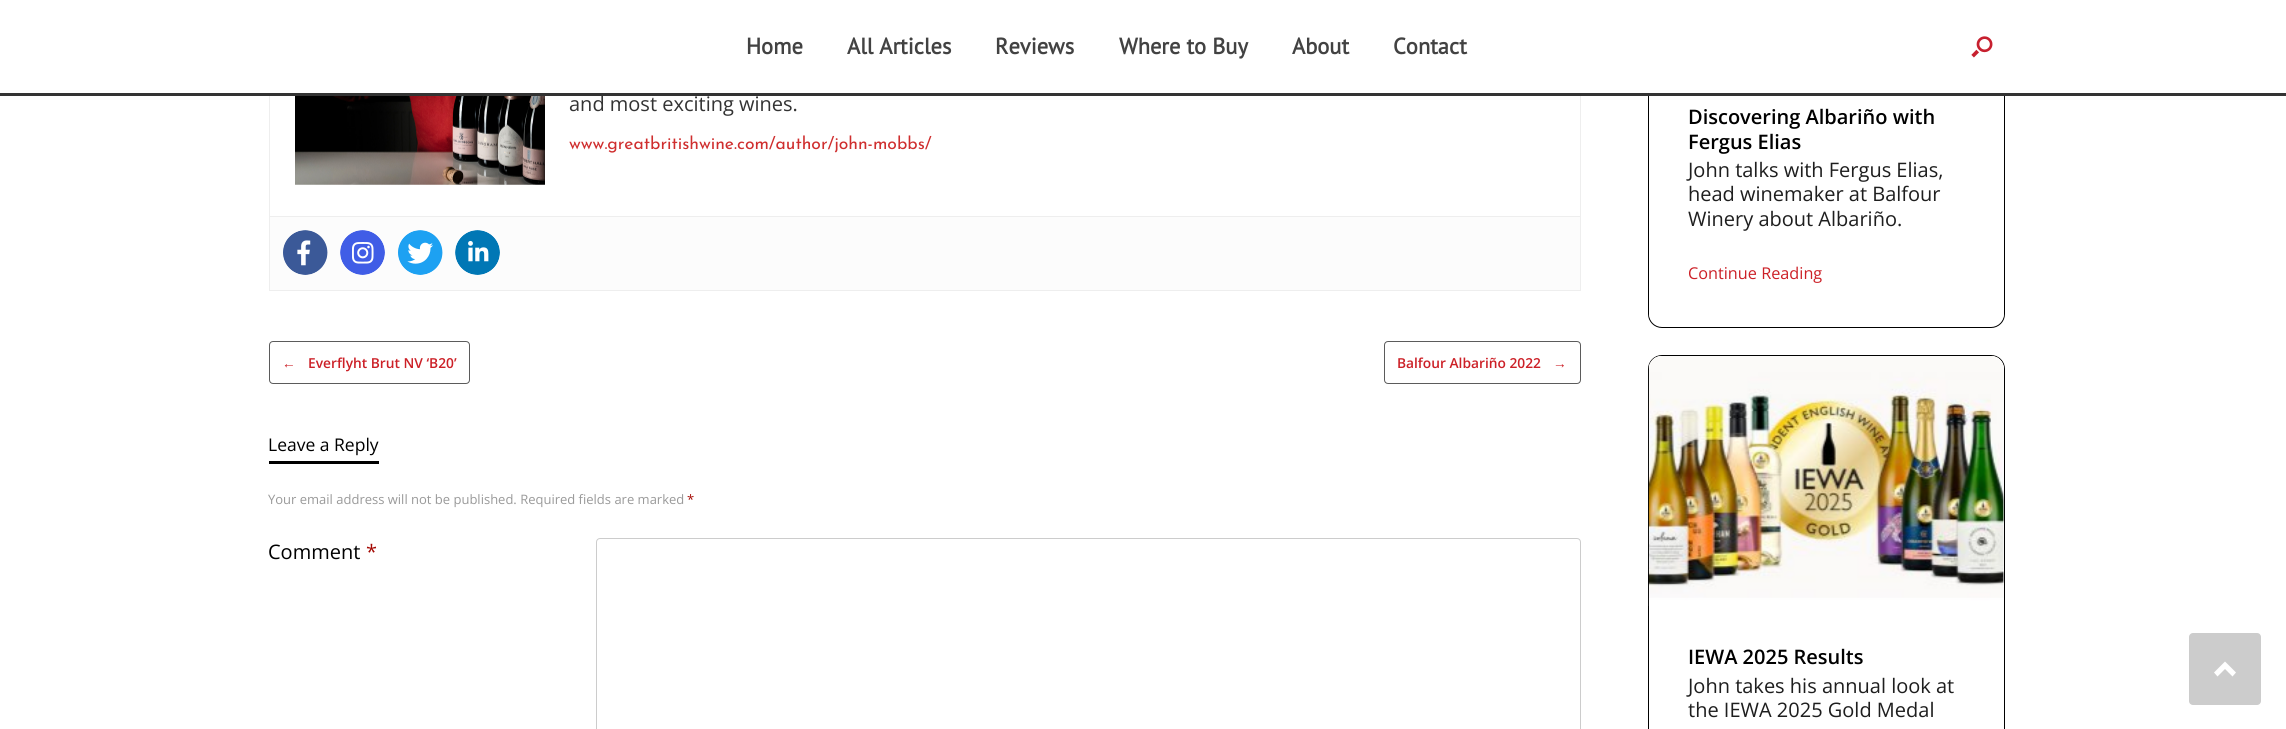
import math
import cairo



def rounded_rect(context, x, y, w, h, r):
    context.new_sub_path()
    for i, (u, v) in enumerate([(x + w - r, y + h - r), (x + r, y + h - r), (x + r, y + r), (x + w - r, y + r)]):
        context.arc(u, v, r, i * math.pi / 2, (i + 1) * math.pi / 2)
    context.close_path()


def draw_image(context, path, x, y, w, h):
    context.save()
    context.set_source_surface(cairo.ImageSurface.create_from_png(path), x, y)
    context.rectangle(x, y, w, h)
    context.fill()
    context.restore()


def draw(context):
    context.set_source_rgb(1, 1, 1)
    context.paint()
    context.rectangle(269.5, -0.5, 1311, 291)
    context.set_source_rgb(238 / 255, 238 / 255, 238 / 255)
    context.set_line_width(1)
    context.stroke()
    rounded_rect(context, 1648.5, -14.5, 356, 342, 13.5)
    context.set_source_rgb(0, 0, 0)
    context.stroke()
    context.set_source_rgb(1, 1, 1)
    rounded_rect(context, 1649, -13, 355, 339, 13)
    context.fill()
    context.rectangle(269, 0, 1736, 93)
    context.fill()
    context.set_source_rgb(51 / 255, 51 / 255, 51 / 255)
    context.rectangle(0, 93, 2286, 3)
    context.fill()
    draw_image(context, "images/1.png", 1971, 36, 22, 22)
    draw_image(context, "images/2.png", 295, 96, 250, 89)
    context.set_source_rgb(252 / 255, 252 / 255, 252 / 255)
    context.rectangle(270, 217, 1310, 73)
    context.fill()
    context.set_source_rgb(238 / 255, 238 / 255, 238 / 255)
    context.rectangle(270, 216, 1310, 1)
    context.fill()
    draw_image(context, "images/3.png", 283, 230, 45, 45)
    draw_image(context, "images/4.png", 340, 230, 45, 45)
    draw_image(context, "images/5.png", 398, 230, 45, 45)
    draw_image(context, "images/6.png", 455, 230, 45, 45)
    rounded_rect(context, 269.5, 341.5, 200, 42, 3.5)
    context.set_source_rgb(91 / 255, 91 / 255, 91 / 255)
    context.stroke()
    rounded_rect(context, 1384.5, 341.5, 196, 42, 3.5)
    context.stroke()
    context.set_source_rgb(0, 0, 0)
    context.rectangle(269, 461, 110, 3)
    context.fill()
    rounded_rect(context, 596.5, 538.5, 984, 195, 3.5)
    context.set_source_rgb(204 / 255, 204 / 255, 204 / 255)
    context.stroke()
    rounded_rect(context, 1648.5, 355.5, 356, 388, 13.5)
    context.set_source_rgb(0, 0, 0)
    context.stroke()
    context.set_source_rgb(1, 1, 1)
    rounded_rect(context, 1649, 356, 355, 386, 13)
    context.fill()
    draw_image(context, "images/7.png", 1648, 356, 356, 250)
    context.set_source_rgb(204 / 255, 204 / 255, 204 / 255)
    rounded_rect(context, 2189, 633, 72, 72, 4)
    context.fill()
    context.set_source_rgb(1, 1, 1)
    context.new_path()
    context.move_to(2236, 672.5)
    context.line_to(2225, 661.5)
    context.line_to(2214, 672.5)
    context.line_to(2217.5, 676.5)
    context.line_to(2225, 669)
    context.line_to(2232.5, 676.5)
    context.close_path()
    context.fill()
    context.select_font_face("PT Sans", cairo.FontSlant.NORMAL, cairo.FontWeight.BOLD)
    context.set_font_size(22.5)
    context.set_source_rgb(66 / 255, 66 / 255, 66 / 255)
    context.move_to(746, 54)
    context.show_text("Home")
    context.move_to(847, 54)
    context.show_text("All Articles")
    context.move_to(995, 54)
    context.show_text("Reviews")
    context.move_to(1119, 54)
    context.show_text("Where to Buy")
    context.move_to(1292, 54)
    context.show_text("About")
    context.move_to(1393, 54)
    context.show_text("Contact")
    context.select_font_face("Open Sans")
    context.set_font_size(20)
    context.set_source_rgb(51 / 255, 51 / 255, 51 / 255)
    context.move_to(569, 111)
    context.show_text("and most exciting wines.")
    context.select_font_face("Josefin Sans")
    context.set_font_size(17.5)
    context.set_source_rgb(207 / 255, 46 / 255, 46 / 255)
    context.move_to(569, 149)
    context.show_text("www.greatbritishwine.com/author/john-mobbs/")
    context.select_font_face("Liberation Serif", cairo.FontSlant.NORMAL, cairo.FontWeight.BOLD)
    context.set_font_size(13.75)
    context.set_source_rgb(204 / 255, 32 / 255, 39 / 255)
    context.move_to(282, 368)
    context.show_text("←")
    context.select_font_face("Open Sans SemiBold")
    context.move_to(308, 368)
    context.show_text("Everflyht Brut NV ‘B20’")
    context.move_to(1397, 368)
    context.show_text("Balfour Albariño 2022")
    context.select_font_face("Liberation Serif", cairo.FontSlant.NORMAL, cairo.FontWeight.BOLD)
    context.move_to(1553, 368)
    context.show_text("→")
    context.select_font_face("Open Sans")
    context.set_font_size(17.5)
    context.set_source_rgb(0, 0, 0)
    context.move_to(268, 451)
    context.show_text("Leave a Reply")
    context.set_font_size(13)
    context.set_source_rgb(153 / 255, 153 / 255, 153 / 255)
    context.move_to(268, 504)
    context.show_text("Your email address will not be published. Required fields are marked")
    context.set_source_rgb(164 / 255, 8 / 255, 2 / 255)
    context.move_to(687, 504)
    context.show_text("*")
    context.set_font_size(20)
    context.set_source_rgb(0, 0, 0)
    context.move_to(268, 559)
    context.show_text("Comment")
    context.set_source_rgb(164 / 255, 8 / 255, 2 / 255)
    context.move_to(366, 559)
    context.show_text("*")
    context.select_font_face("Open Sans SemiBold")
    context.set_source_rgb(0, 0, 0)
    context.move_to(1688, 124)
    context.show_text("Discovering Albariño with")
    context.move_to(1688, 149)
    context.show_text("Fergus Elias")
    context.select_font_face("Open Sans")
    context.set_source_rgb(30 / 255, 30 / 255, 30 / 255)
    context.move_to(1688, 177)
    context.show_text("John talks with Fergus Elias,")
    context.move_to(1688, 201)
    context.show_text("head winemaker at Balfour")
    context.move_to(1688, 226)
    context.show_text("Winery about Albariño.")
    context.set_font_size(16.25)
    context.set_source_rgb(204 / 255, 32 / 255, 39 / 255)
    context.move_to(1688, 279)
    context.show_text("Continue Reading")
    context.select_font_face("Open Sans SemiBold")
    context.set_font_size(20)
    context.set_source_rgb(0, 0, 0)
    context.move_to(1688, 664)
    context.show_text("IEWA 2025 Results")
    context.select_font_face("Open Sans")
    context.set_source_rgb(30 / 255, 30 / 255, 30 / 255)
    context.move_to(1688, 693)
    context.show_text("John takes his annual look at")
    context.move_to(1688, 717)
    context.show_text("the IEWA 2025 Gold Medal")


surface = cairo.ImageSurface(cairo.Format.RGB24, 2286, 729)
context = cairo.Context(surface)
options = cairo.FontOptions()
options.set_hint_metrics(cairo.HintMetrics.OFF)
options.set_hint_style(cairo.HintStyle.NONE)
context.set_font_options(options)
context.set_miter_limit(4)
draw(context)
surface.write_to_png("out.png")
